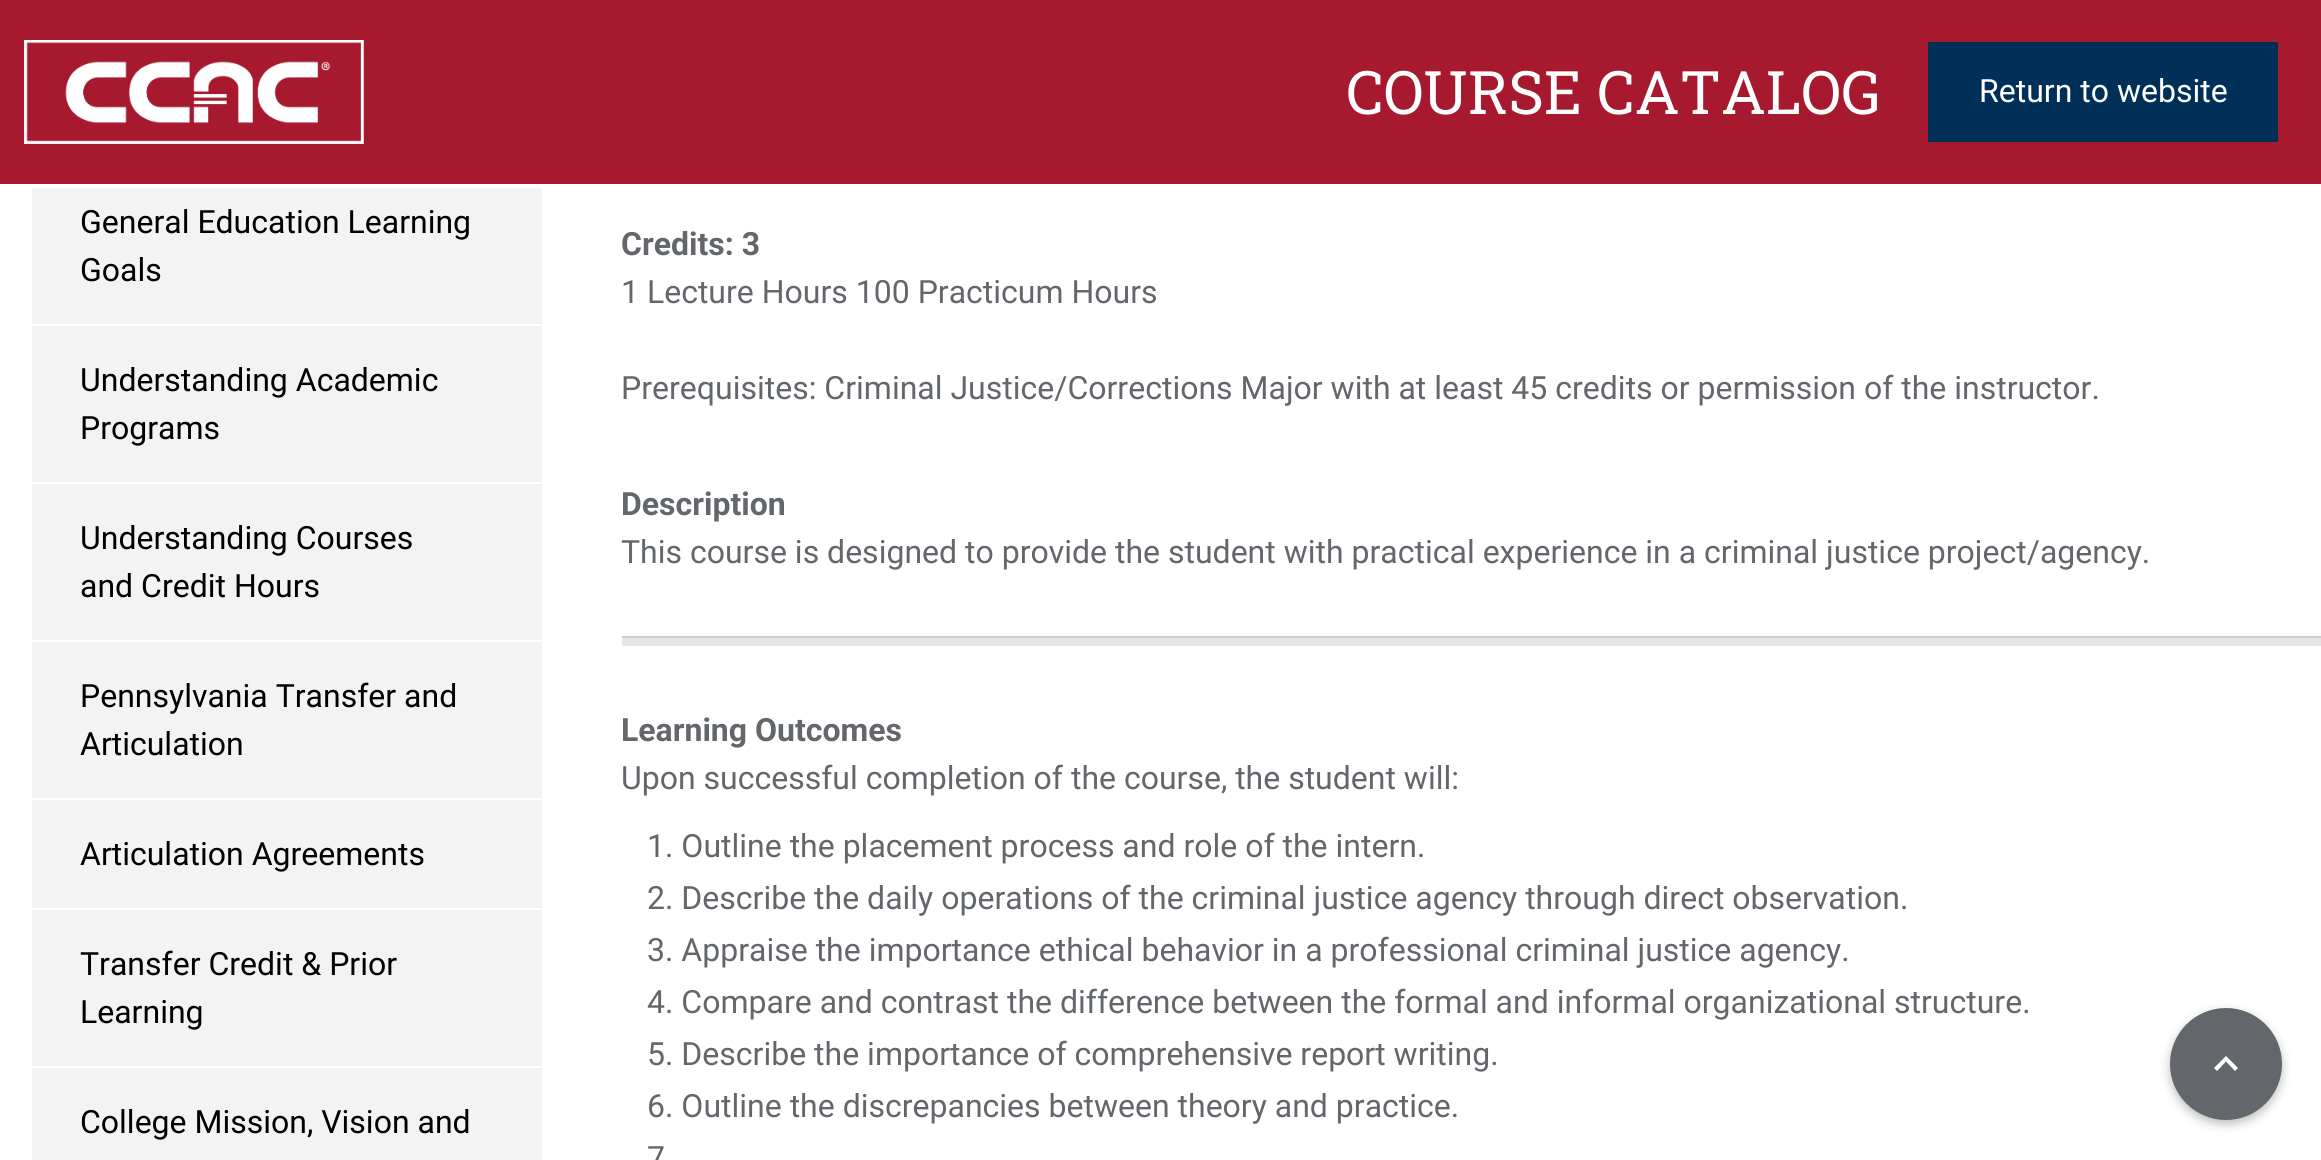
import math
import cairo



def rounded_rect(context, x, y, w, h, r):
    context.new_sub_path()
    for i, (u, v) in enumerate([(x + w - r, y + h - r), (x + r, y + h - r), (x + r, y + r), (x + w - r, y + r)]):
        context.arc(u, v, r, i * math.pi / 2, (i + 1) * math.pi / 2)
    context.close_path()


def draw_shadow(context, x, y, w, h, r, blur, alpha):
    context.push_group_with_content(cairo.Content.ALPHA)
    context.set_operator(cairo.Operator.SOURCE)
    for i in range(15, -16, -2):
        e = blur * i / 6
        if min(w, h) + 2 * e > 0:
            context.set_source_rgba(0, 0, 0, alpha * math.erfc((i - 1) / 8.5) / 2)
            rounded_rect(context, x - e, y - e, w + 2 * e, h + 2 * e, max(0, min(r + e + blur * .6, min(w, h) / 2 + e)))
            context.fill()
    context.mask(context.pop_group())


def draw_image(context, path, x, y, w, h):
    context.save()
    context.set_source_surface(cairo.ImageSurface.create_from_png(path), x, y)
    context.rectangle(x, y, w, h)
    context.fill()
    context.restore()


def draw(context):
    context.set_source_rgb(1, 1, 1)
    context.paint()
    context.set_source_rgb(166 / 255, 25 / 255, 46 / 255)
    context.rectangle(0, 0, 2321, 184)
    context.fill()
    draw_image(context, "images/1.png", 24, 40, 340, 104)
    context.set_source_rgb(0, 48 / 255, 87 / 255)
    context.rectangle(1928, 42, 350, 100)
    context.fill()
    context.set_source_rgb(243 / 255, 243 / 255, 243 / 255)
    context.rectangle(32, 188, 510, 136)
    context.fill()
    context.rectangle(32, 326, 510, 156)
    context.fill()
    context.rectangle(32, 484, 510, 156)
    context.fill()
    context.rectangle(32, 642, 510, 156)
    context.fill()
    context.rectangle(32, 800, 510, 108)
    context.fill()
    context.rectangle(32, 910, 510, 156)
    context.fill()
    context.rectangle(32, 1068, 510, 92)
    context.fill()
    context.set_source_rgb(230 / 255, 230 / 255, 230 / 255)
    context.rectangle(622, 638, 1699, 8)
    context.fill()
    context.set_source_rgb(204 / 255, 204 / 255, 204 / 255)
    context.rectangle(622, 636, 1699, 2)
    context.fill()
    context.set_source_rgb(0, 0, 0)
    draw_shadow(context, 2170, 1012, 112, 112, 56, 5, 0.26)
    context.set_source_rgb(99 / 255, 102 / 255, 106 / 255)
    context.arc(2226, 1064, 56, 0, 2 * math.pi)
    context.fill()
    context.set_source_rgb(1, 1, 1)
    context.new_path()
    context.move_to(2217, 1071)
    context.line_to(2226, 1061.5)
    context.line_to(2235, 1071)
    context.line_to(2238, 1068)
    context.line_to(2226, 1056)
    context.line_to(2214, 1068)
    context.close_path()
    context.fill()
    context.select_font_face("Roboto Slab")
    context.set_font_size(60)
    context.move_to(1346, 114)
    context.show_text("COURSE CATALOG")
    context.select_font_face("Roboto")
    context.set_font_size(32)
    context.move_to(1979, 102)
    context.show_text("Return to website")
    context.set_source_rgb(0, 0, 0)
    context.move_to(80, 233)
    context.show_text("General Education Learning")
    context.move_to(80, 281)
    context.show_text("Goals")
    context.move_to(80, 391)
    context.show_text("Understanding Academic")
    context.move_to(80, 439)
    context.show_text("Programs")
    context.move_to(80, 549)
    context.show_text("Understanding Courses")
    context.move_to(80, 597)
    context.show_text("and Credit Hours")
    context.move_to(80, 707)
    context.show_text("Pennsylvania Transfer and")
    context.move_to(80, 755)
    context.show_text("Articulation")
    context.move_to(80, 865)
    context.show_text("Articulation Agreements")
    context.move_to(80, 975)
    context.show_text("Transfer Credit & Prior")
    context.move_to(80, 1023)
    context.show_text("Learning")
    context.move_to(80, 1133)
    context.show_text("College Mission, Vision and")
    context.select_font_face("Roboto", cairo.FontSlant.NORMAL, cairo.FontWeight.BOLD)
    context.set_source_rgb(99 / 255, 102 / 255, 106 / 255)
    context.move_to(621, 255)
    context.show_text("Credits: 3")
    context.select_font_face("Roboto")
    context.move_to(621, 303)
    context.show_text("1 Lecture Hours 100 Practicum Hours")
    context.move_to(621, 399)
    context.show_text("Prerequisites: Criminal Justice/Corrections Major with at least 45 credits or permission of the instructor.")
    context.select_font_face("Roboto", cairo.FontSlant.NORMAL, cairo.FontWeight.BOLD)
    context.move_to(621, 515)
    context.show_text("Description")
    context.select_font_face("Roboto")
    context.move_to(621, 563)
    context.show_text("This course is designed to provide the student with practical experience in a criminal justice project/agency.")
    context.select_font_face("Roboto", cairo.FontSlant.NORMAL, cairo.FontWeight.BOLD)
    context.move_to(621, 741)
    context.show_text("Learning Outcomes")
    context.select_font_face("Roboto")
    context.move_to(621, 789)
    context.show_text("Upon successful completion of the course, the student will:")
    context.move_to(647, 857)
    context.show_text("1. Outline the placement process and role of the intern.")
    context.move_to(647, 909)
    context.show_text("2. Describe the daily operations of the criminal justice agency through direct observation.")
    context.move_to(647, 961)
    context.show_text("3. Appraise the importance ethical behavior in a professional criminal justice agency.")
    context.move_to(647, 1013)
    context.show_text("4. Compare and contrast the difference between the formal and informal organizational structure.")
    context.move_to(647, 1065)
    context.show_text("5. Describe the importance of comprehensive report writing.")
    context.move_to(647, 1117)
    context.show_text("6. Outline the discrepancies between theory and practice.")
    context.move_to(647, 1169)
    context.show_text("7")


surface = cairo.ImageSurface(cairo.Format.RGB24, 2321, 1160)
context = cairo.Context(surface)
options = cairo.FontOptions()
options.set_hint_metrics(cairo.HintMetrics.OFF)
options.set_hint_style(cairo.HintStyle.NONE)
context.set_font_options(options)
context.set_miter_limit(4)
draw(context)
surface.write_to_png("out.png")
